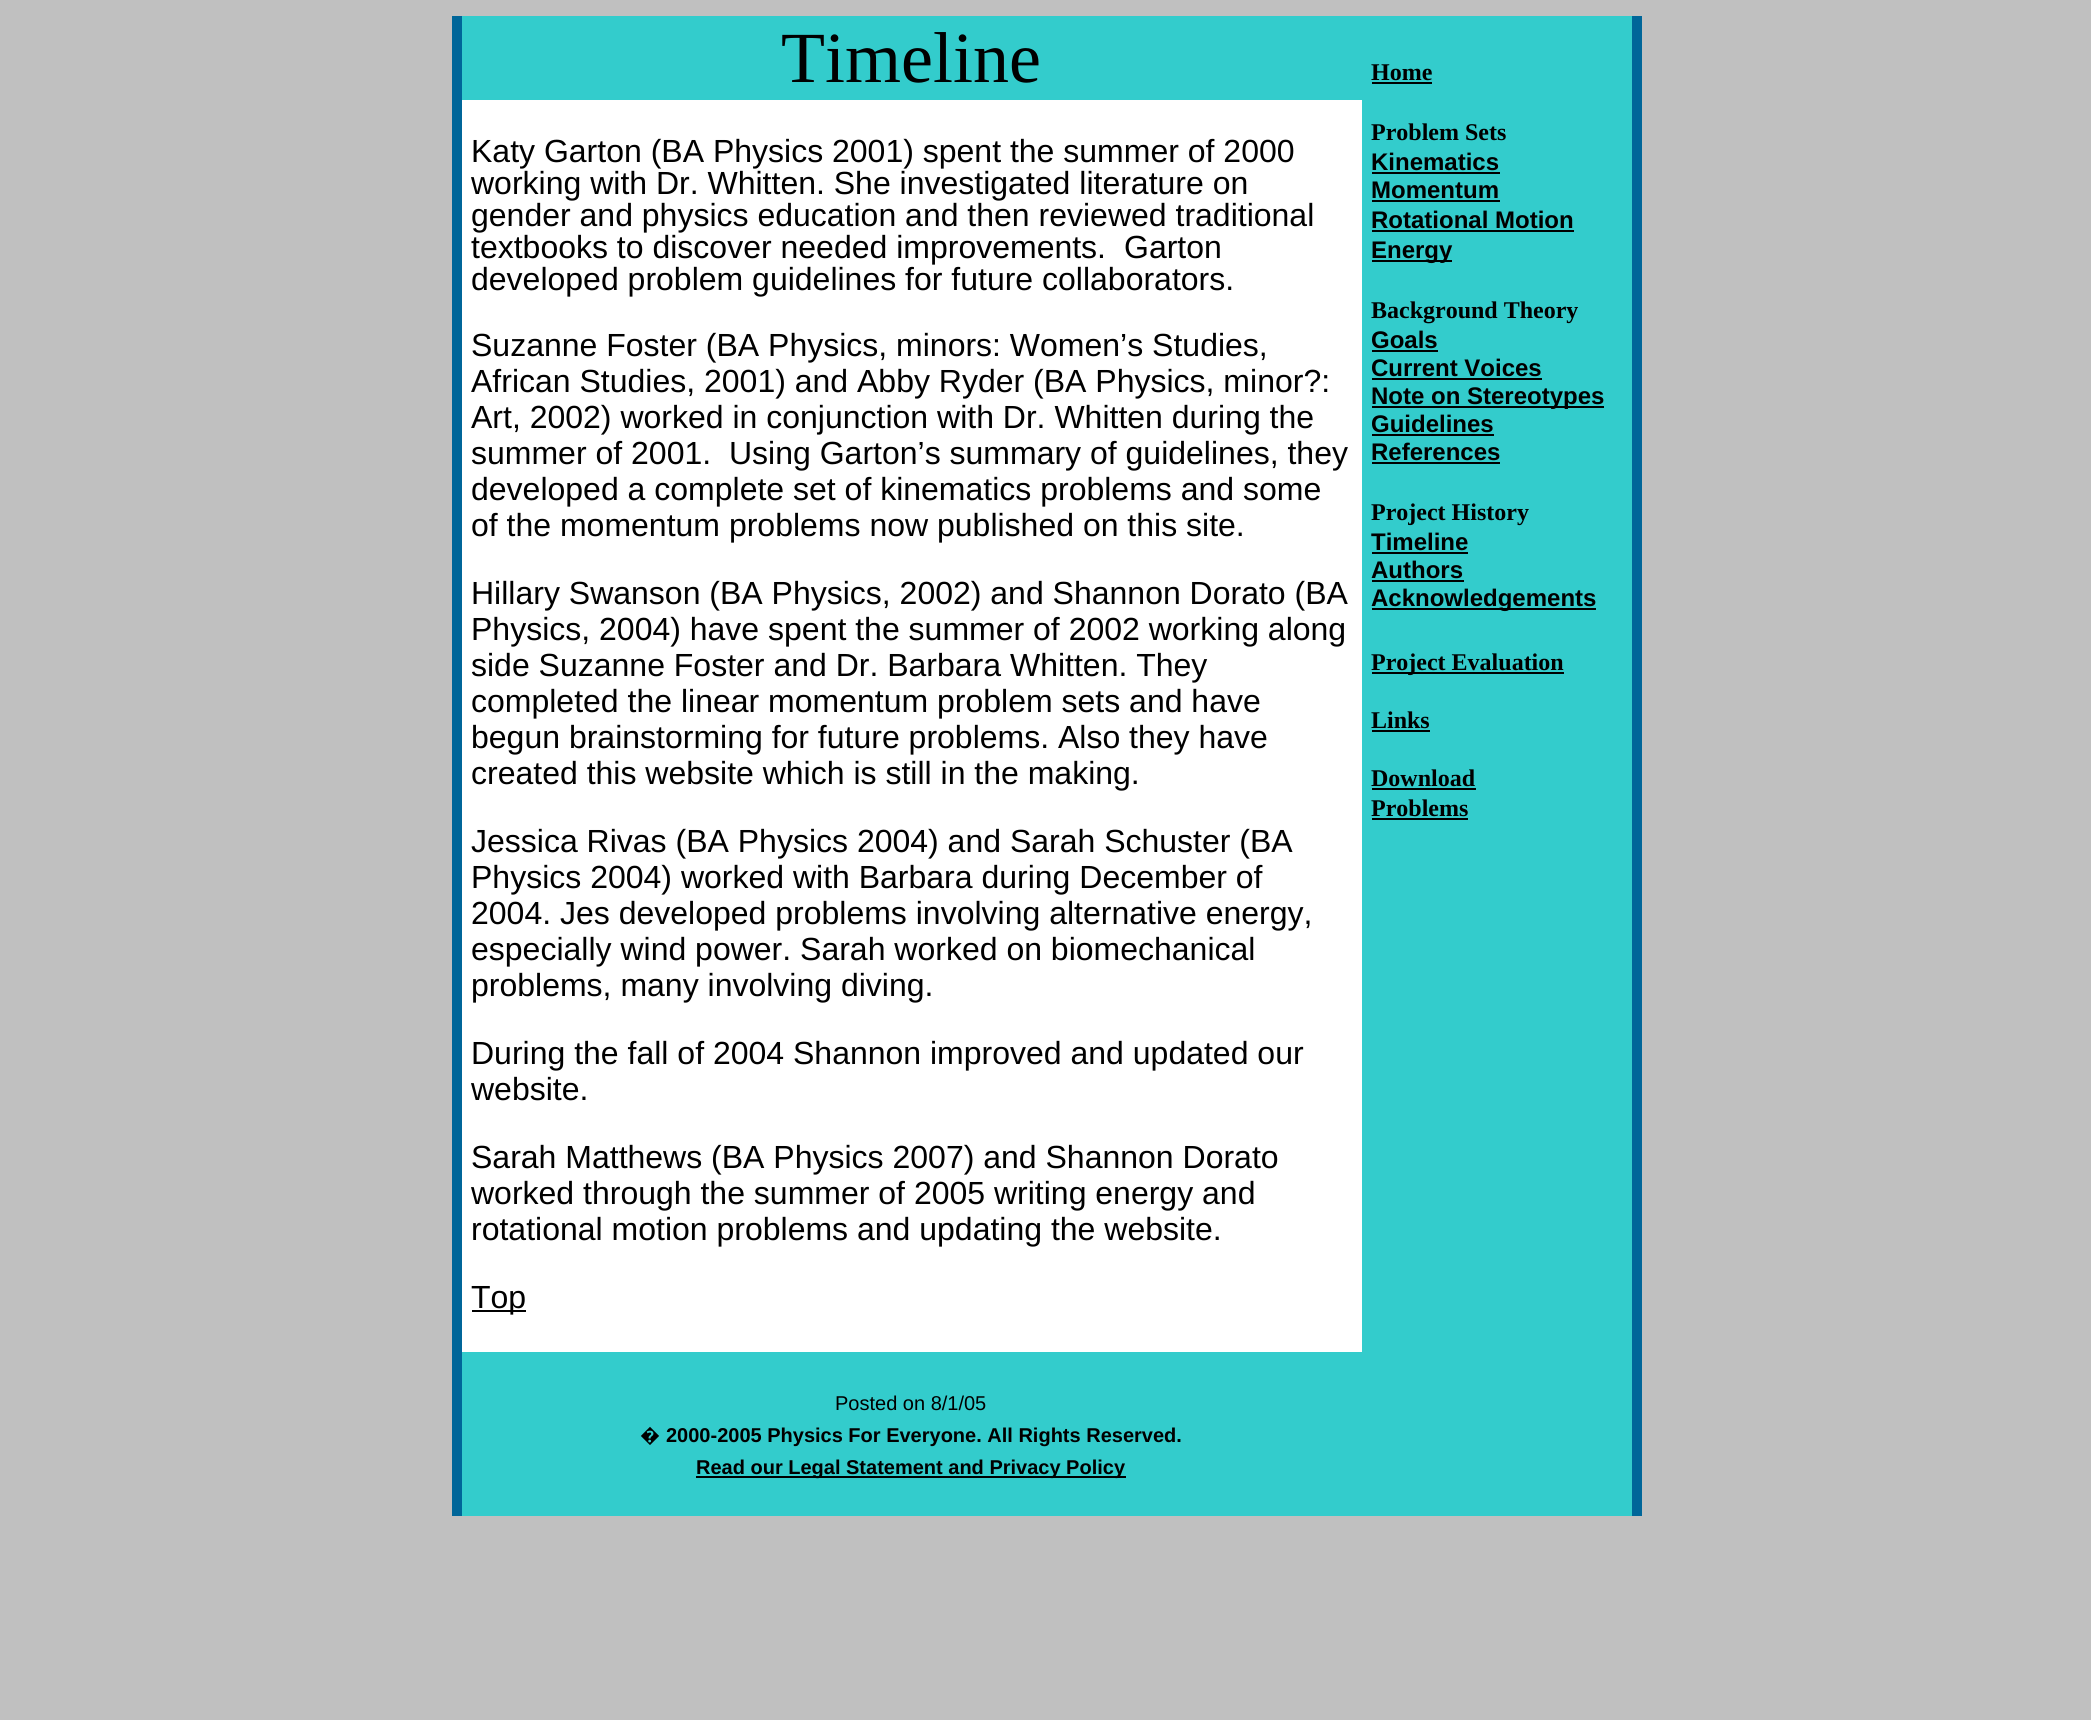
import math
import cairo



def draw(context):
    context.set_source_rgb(192 / 255, 192 / 255, 192 / 255)
    context.paint()
    context.set_source_rgb(0, 102 / 255, 153 / 255)
    context.rectangle(452, 16, 10, 1500)
    context.fill()
    context.set_source_rgb(51 / 255, 204 / 255, 204 / 255)
    context.rectangle(462, 16, 900, 84)
    context.fill()
    context.rectangle(1362, 16, 270, 1500)
    context.fill()
    context.set_source_rgb(0, 102 / 255, 153 / 255)
    context.rectangle(1632, 16, 10, 1500)
    context.fill()
    context.set_source_rgb(0, 0, 0)
    context.rectangle(1372, 82, 60, 2)
    context.fill()
    context.rectangle(1372, 172, 128, 2)
    context.fill()
    context.rectangle(1372, 200, 128, 2)
    context.fill()
    context.rectangle(1372, 230, 202, 2)
    context.fill()
    context.rectangle(1372, 260, 80, 2)
    context.fill()
    context.rectangle(1372, 350, 66, 2)
    context.fill()
    context.rectangle(1372, 378, 170, 2)
    context.fill()
    context.rectangle(1372, 406, 232, 2)
    context.fill()
    context.rectangle(1372, 434, 122, 2)
    context.fill()
    context.rectangle(1372, 462, 128, 2)
    context.fill()
    context.rectangle(1372, 552, 96, 2)
    context.fill()
    context.rectangle(1372, 580, 92, 2)
    context.fill()
    context.rectangle(1372, 608, 224, 2)
    context.fill()
    context.rectangle(1372, 672, 192, 2)
    context.fill()
    context.rectangle(1372, 730, 58, 2)
    context.fill()
    context.rectangle(1372, 788, 104, 2)
    context.fill()
    context.rectangle(1372, 818, 96, 2)
    context.fill()
    context.set_source_rgb(1, 1, 1)
    context.rectangle(462, 100, 10, 1252)
    context.fill()
    context.rectangle(472, 100, 880, 1252)
    context.fill()
    context.rectangle(1352, 100, 10, 1252)
    context.fill()
    context.set_source_rgb(0, 0, 0)
    context.rectangle(472, 1310, 54, 2)
    context.fill()
    context.set_source_rgb(51 / 255, 204 / 255, 204 / 255)
    context.rectangle(462, 1352, 900, 164)
    context.fill()
    context.set_source_rgb(0, 0, 0)
    context.rectangle(696, 1476, 430, 2)
    context.fill()
    context.select_font_face("Liberation Serif")
    context.set_font_size(72)
    context.move_to(781, 82)
    context.show_text("Timeline")
    context.select_font_face("Liberation Serif", cairo.FontSlant.NORMAL, cairo.FontWeight.BOLD)
    context.set_font_size(24)
    context.move_to(1371, 80)
    context.show_text("Home")
    context.move_to(1371, 140)
    context.show_text("Problem Sets")
    context.select_font_face("Liberation Sans", cairo.FontSlant.NORMAL, cairo.FontWeight.BOLD)
    context.move_to(1371, 170)
    context.show_text("Kinematics")
    context.move_to(1371, 198)
    context.show_text("Momentum")
    context.move_to(1371, 228)
    context.show_text("Rotational Motion")
    context.move_to(1371, 258)
    context.show_text("Energy")
    context.select_font_face("Liberation Serif", cairo.FontSlant.NORMAL, cairo.FontWeight.BOLD)
    context.move_to(1371, 318)
    context.show_text("Background Theory")
    context.select_font_face("Liberation Sans", cairo.FontSlant.NORMAL, cairo.FontWeight.BOLD)
    context.move_to(1371, 348)
    context.show_text("Goals")
    context.move_to(1371, 376)
    context.show_text("Current Voices")
    context.move_to(1371, 404)
    context.show_text("Note on Stereotypes")
    context.move_to(1371, 432)
    context.show_text("Guidelines")
    context.move_to(1371, 460)
    context.show_text("References")
    context.select_font_face("Liberation Serif", cairo.FontSlant.NORMAL, cairo.FontWeight.BOLD)
    context.move_to(1371, 520)
    context.show_text("Project History")
    context.select_font_face("Liberation Sans", cairo.FontSlant.NORMAL, cairo.FontWeight.BOLD)
    context.move_to(1371, 550)
    context.show_text("Timeline")
    context.move_to(1371, 578)
    context.show_text("Authors")
    context.move_to(1371, 606)
    context.show_text("Acknowledgements")
    context.select_font_face("Liberation Serif", cairo.FontSlant.NORMAL, cairo.FontWeight.BOLD)
    context.move_to(1371, 670)
    context.show_text("Project Evaluation")
    context.move_to(1371, 728)
    context.show_text("Links")
    context.move_to(1371, 786)
    context.show_text("Download")
    context.move_to(1371, 816)
    context.show_text("Problems")
    context.select_font_face("Liberation Sans")
    context.set_font_size(32)
    context.move_to(471, 162)
    context.show_text("Katy Garton (BA Physics 2001) spent the summer of 2000")
    context.move_to(471, 194)
    context.show_text("working with Dr. Whitten. She investigated literature on")
    context.move_to(471, 226)
    context.show_text("gender and physics education and then reviewed traditional")
    context.move_to(471, 258)
    context.show_text("textbooks to discover needed improvements.")
    context.move_to(1124, 258)
    context.show_text("Garton")
    context.move_to(471, 290)
    context.show_text("developed problem guidelines for future collaborators.")
    context.move_to(471, 356)
    context.show_text("Suzanne Foster (BA Physics, minors: Women’s Studies,")
    context.move_to(471, 392)
    context.show_text("African Studies, 2001) and Abby Ryder (BA Physics, minor?:")
    context.move_to(471, 428)
    context.show_text("Art, 2002) worked in conjunction with Dr. Whitten during the")
    context.move_to(471, 464)
    context.show_text("summer of 2001.")
    context.move_to(729, 464)
    context.show_text("Using Garton’s summary of guidelines, they")
    context.move_to(471, 500)
    context.show_text("developed a complete set of kinematics problems and some")
    context.move_to(471, 536)
    context.show_text("of the momentum problems now published on this site.")
    context.move_to(471, 604)
    context.show_text("Hillary Swanson (BA Physics, 2002) and Shannon Dorato (BA")
    context.move_to(471, 640)
    context.show_text("Physics, 2004) have spent the summer of 2002 working along")
    context.move_to(471, 676)
    context.show_text("side Suzanne Foster and Dr. Barbara Whitten. They")
    context.move_to(471, 712)
    context.show_text("completed the linear momentum problem sets and have")
    context.move_to(471, 748)
    context.show_text("begun brainstorming for future problems. Also they have")
    context.move_to(471, 784)
    context.show_text("created this website which is still in the making.")
    context.move_to(471, 852)
    context.show_text("Jessica Rivas (BA Physics 2004) and Sarah Schuster (BA")
    context.move_to(471, 888)
    context.show_text("Physics 2004) worked with Barbara during December of")
    context.move_to(471, 924)
    context.show_text("2004. Jes developed problems involving alternative energy,")
    context.move_to(471, 960)
    context.show_text("especially wind power. Sarah worked on biomechanical")
    context.move_to(471, 996)
    context.show_text("problems, many involving diving.")
    context.move_to(471, 1064)
    context.show_text("During the fall of 2004 Shannon improved and updated our")
    context.move_to(471, 1100)
    context.show_text("website.")
    context.move_to(471, 1168)
    context.show_text("Sarah Matthews (BA Physics 2007) and Shannon Dorato")
    context.move_to(471, 1204)
    context.show_text("worked through the summer of 2005 writing energy and")
    context.move_to(471, 1240)
    context.show_text("rotational motion problems and updating the website.")
    context.move_to(471, 1308)
    context.show_text("Top")
    context.set_font_size(20)
    context.move_to(835, 1410)
    context.show_text("Posted on 8/1/05")
    context.select_font_face("Noto Sans", cairo.FontSlant.NORMAL, cairo.FontWeight.BOLD)
    context.move_to(640, 1442)
    context.show_text("�")
    context.select_font_face("Liberation Sans", cairo.FontSlant.NORMAL, cairo.FontWeight.BOLD)
    context.move_to(666, 1442)
    context.show_text("2000-2005 Physics For Everyone. All Rights Reserved.")
    context.move_to(696, 1474)
    context.show_text("Read our Legal Statement and Privacy Policy")


surface = cairo.ImageSurface(cairo.Format.RGB24, 2091, 1720)
context = cairo.Context(surface)
options = cairo.FontOptions()
options.set_hint_metrics(cairo.HintMetrics.OFF)
options.set_hint_style(cairo.HintStyle.NONE)
context.set_font_options(options)
context.set_miter_limit(4)
draw(context)
surface.write_to_png("out.png")
